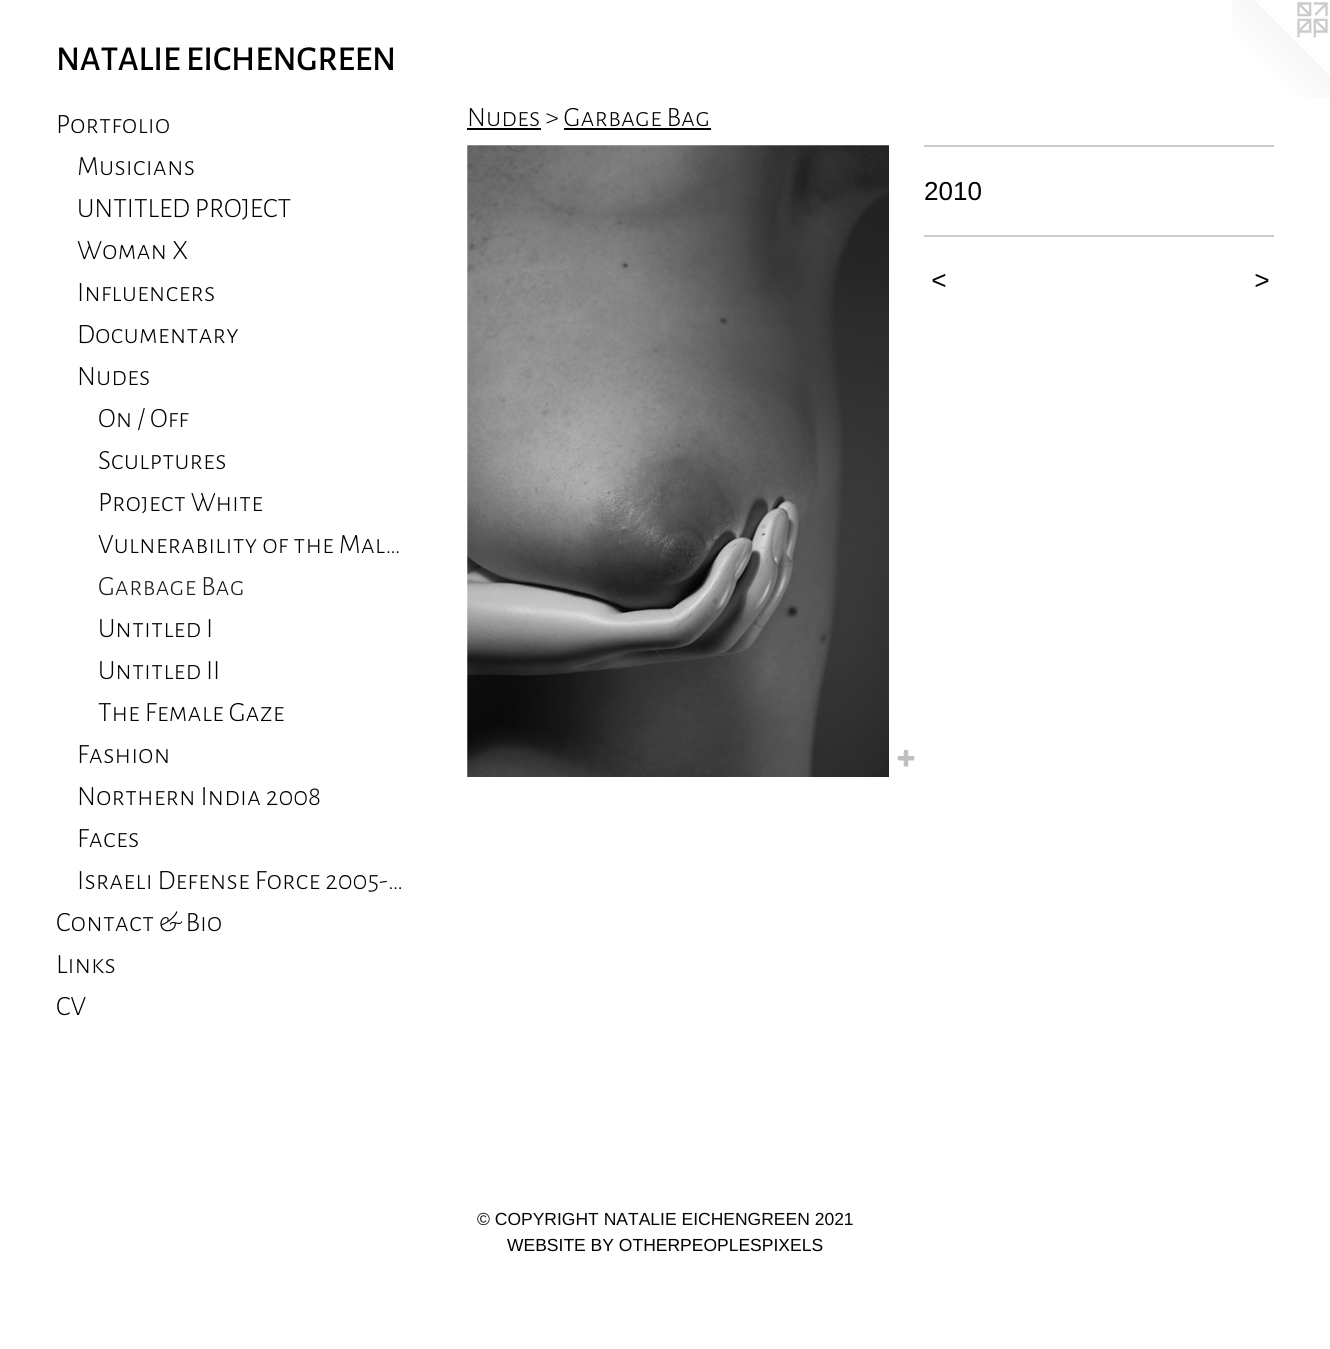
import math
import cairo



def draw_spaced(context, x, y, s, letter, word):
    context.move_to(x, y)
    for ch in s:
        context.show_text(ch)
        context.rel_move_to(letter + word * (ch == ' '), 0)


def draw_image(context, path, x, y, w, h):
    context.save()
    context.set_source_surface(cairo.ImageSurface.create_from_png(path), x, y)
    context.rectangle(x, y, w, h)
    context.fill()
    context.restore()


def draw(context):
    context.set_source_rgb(1, 1, 1)
    context.paint()
    draw_image(context, "images/1.png", 1232, 0, 98, 98)
    context.set_source_rgb(0, 0, 0)
    context.rectangle(467, 128, 74, 2)
    context.fill()
    context.rectangle(564, 128, 147, 2)
    context.fill()
    draw_image(context, "images/2.png", 467, 145, 422, 632)
    draw_image(context, "images/3.png", 897, 750, 18, 17)
    context.set_source_rgb(204 / 255, 204 / 255, 204 / 255)
    context.rectangle(924, 145, 350, 2)
    context.fill()
    context.rectangle(924, 235, 350, 2)
    context.fill()
    context.select_font_face("Alegreya Sans SC Medium")
    context.set_font_size(35)
    context.set_source_rgb(0, 0, 0)
    context.move_to(56, 70)
    context.show_text("NATALIE EICHENGREEN")
    context.select_font_face("Alegreya Sans SC Light")
    context.set_font_size(28)
    context.move_to(56, 133)
    context.show_text("Portfolio")
    context.move_to(77, 175)
    context.show_text("Musicians")
    context.move_to(77, 217)
    context.show_text("UNTITLED PROJECT")
    context.move_to(77, 259)
    context.show_text("Woman X")
    context.move_to(77, 301)
    context.show_text("Influencers")
    context.move_to(77, 343)
    context.show_text("Documentary")
    context.move_to(77, 385)
    context.show_text("Nudes")
    context.move_to(98, 427)
    context.show_text("On / Off")
    context.move_to(98, 469)
    context.show_text("Sculptures")
    context.move_to(98, 511)
    context.show_text("Project White")
    context.move_to(98, 553)
    context.show_text("Vulnerability of the Mal…")
    context.set_source_rgb(26 / 255, 26 / 255, 26 / 255)
    context.move_to(98, 595)
    context.show_text("Garbage Bag")
    context.set_source_rgb(0, 0, 0)
    context.move_to(98, 637)
    context.show_text("Untitled I")
    context.move_to(98, 679)
    context.show_text("Untitled II")
    context.move_to(98, 721)
    context.show_text("The Female Gaze")
    context.move_to(77, 763)
    context.show_text("Fashion")
    context.move_to(77, 805)
    context.show_text("Northern India 2008")
    context.move_to(77, 847)
    context.show_text("Faces")
    context.move_to(77, 889)
    context.show_text("Israeli Defense Force 2005-…")
    context.move_to(56, 931)
    context.show_text("Contact & Bio")
    context.move_to(56, 973)
    context.show_text("Links")
    context.move_to(56, 1015)
    context.show_text("CV")
    context.move_to(467, 126)
    context.show_text("Nudes > Garbage Bag")
    context.select_font_face("Liberation Sans")
    context.set_font_size(26)
    context.move_to(924, 200)
    context.show_text("2010")
    context.select_font_face("Liberation Sans", cairo.FontSlant.ITALIC)
    draw_spaced(context, 931, 289, "<", 2, 0)
    draw_spaced(context, 1254, 289, ">", 2, 0)
    context.select_font_face("Liberation Sans")
    context.set_font_size(17.5)
    context.set_source_rgb(8 / 255, 7 / 255, 7 / 255)
    context.move_to(477, 1225)
    context.show_text("© COPYRIGHT NATALIE EICHENGREEN 2021")
    context.set_source_rgb(0, 0, 0)
    context.move_to(507, 1251)
    context.show_text("WEBSITE BY OTHERPEOPLESPIXELS")


surface = cairo.ImageSurface(cairo.Format.RGB24, 1330, 1349)
context = cairo.Context(surface)
options = cairo.FontOptions()
options.set_hint_metrics(cairo.HintMetrics.OFF)
options.set_hint_style(cairo.HintStyle.NONE)
context.set_font_options(options)
context.set_miter_limit(4)
draw(context)
surface.write_to_png("out.png")
